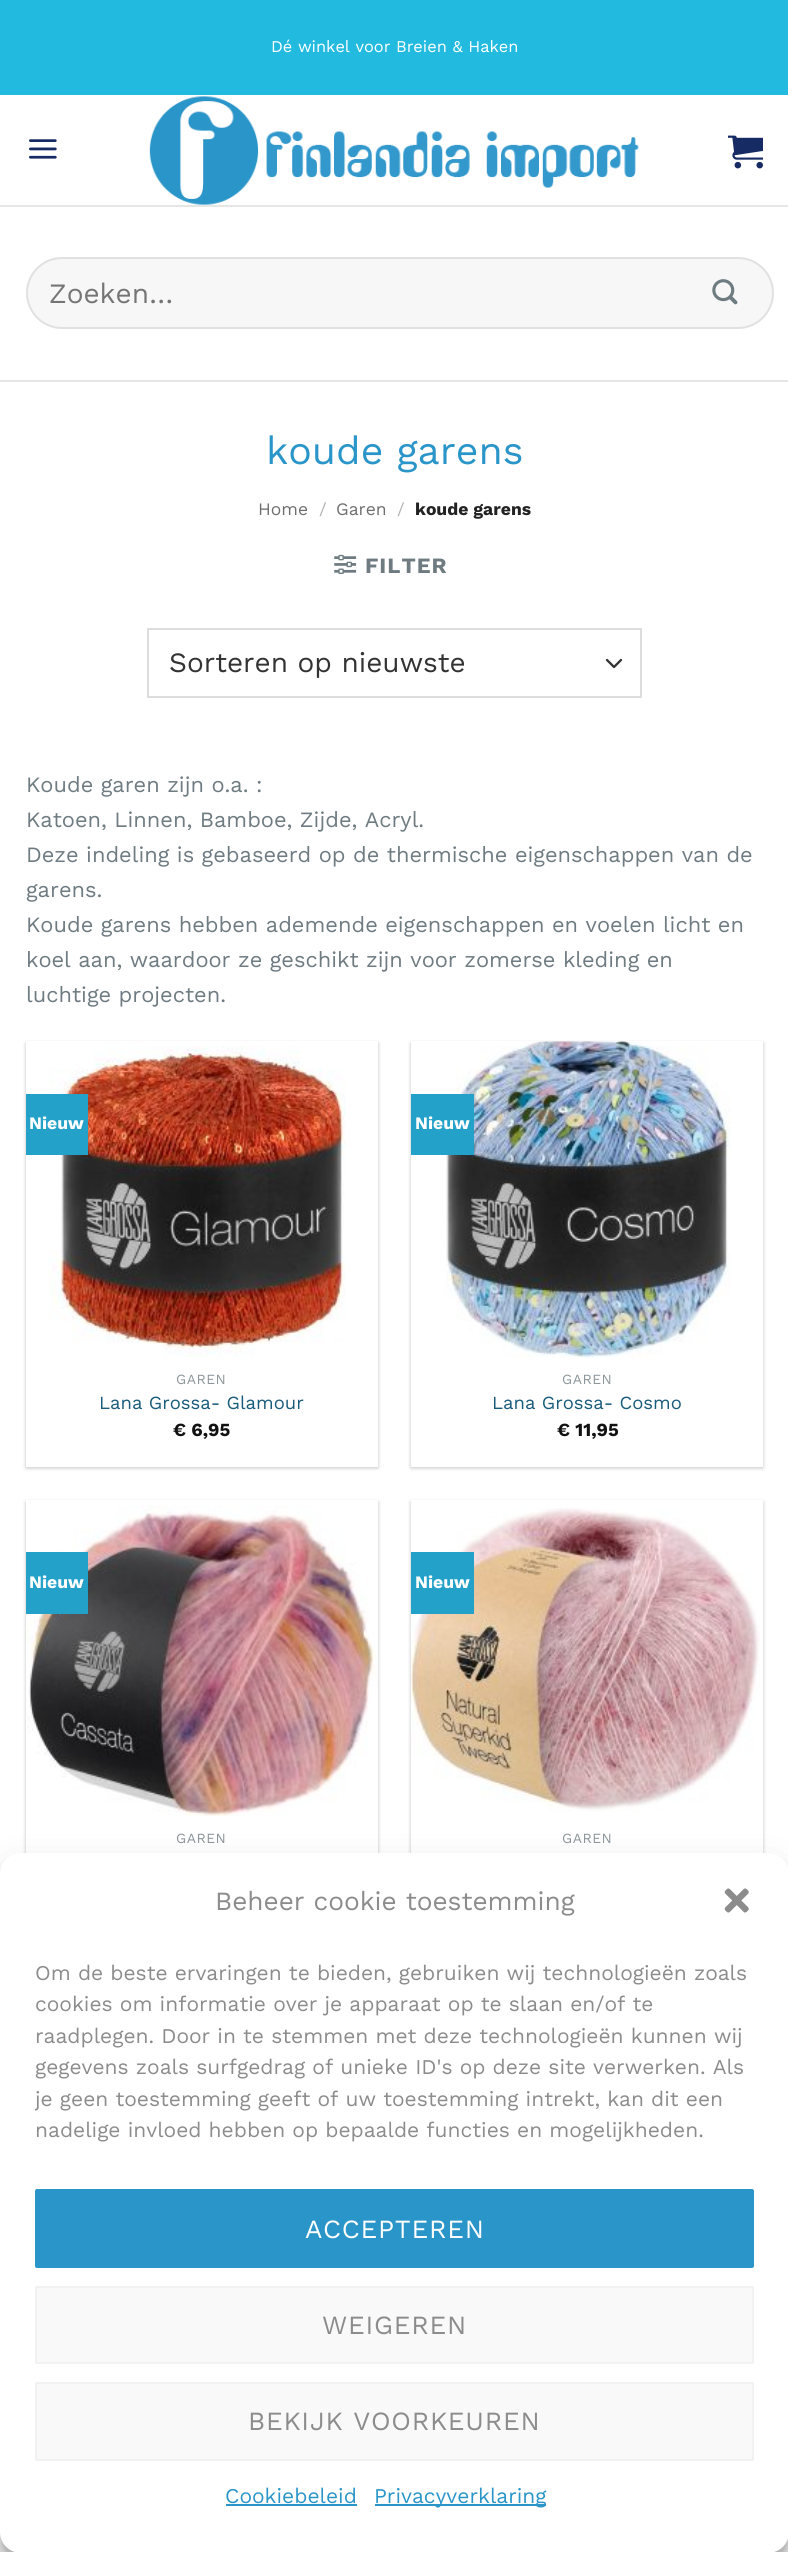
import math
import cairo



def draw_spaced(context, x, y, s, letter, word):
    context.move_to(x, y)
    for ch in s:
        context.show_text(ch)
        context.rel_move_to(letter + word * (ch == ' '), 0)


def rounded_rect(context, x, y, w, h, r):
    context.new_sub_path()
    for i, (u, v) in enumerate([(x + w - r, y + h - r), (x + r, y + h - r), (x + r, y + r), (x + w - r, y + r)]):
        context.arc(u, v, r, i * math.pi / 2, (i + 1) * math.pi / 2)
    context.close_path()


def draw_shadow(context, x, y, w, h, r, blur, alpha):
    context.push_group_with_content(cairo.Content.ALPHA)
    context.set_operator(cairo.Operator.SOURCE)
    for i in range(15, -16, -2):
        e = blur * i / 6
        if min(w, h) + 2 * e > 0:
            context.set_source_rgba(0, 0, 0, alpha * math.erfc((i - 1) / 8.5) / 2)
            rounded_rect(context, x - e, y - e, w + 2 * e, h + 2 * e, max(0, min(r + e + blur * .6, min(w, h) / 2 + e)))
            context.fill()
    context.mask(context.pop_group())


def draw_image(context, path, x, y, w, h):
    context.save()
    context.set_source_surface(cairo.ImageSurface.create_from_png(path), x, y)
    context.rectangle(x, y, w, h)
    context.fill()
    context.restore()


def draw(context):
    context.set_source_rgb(1, 1, 1)
    context.paint()
    context.set_source_rgb(35 / 255, 186 / 255, 224 / 255)
    context.rectangle(0, 0, 788, 95)
    context.fill()
    context.set_source_rgb(230 / 255, 230 / 255, 230 / 255)
    context.rectangle(0, 205, 788, 2)
    context.fill()
    draw_image(context, "images/1.png", 29, 139, 28, 20)
    draw_image(context, "images/2.png", 149, 96, 490, 109)
    draw_image(context, "images/3.png", 728, 135, 35, 34)
    context.rectangle(0, 380, 788, 2)
    context.fill()
    context.set_source_rgb(247 / 255, 247 / 255, 247 / 255)
    rounded_rect(context, 26, 257, 748, 72, 36)
    context.fill()
    rounded_rect(context, 27, 258, 746, 70, 35)
    context.set_source_rgba(0, 0, 0, 0.09)
    context.stroke()
    draw_image(context, "images/4.png", 712, 279, 26, 26)
    draw_image(context, "images/5.png", 334, 554, 23, 20)
    context.new_path()
    context.move_to(607, 660)
    context.line_to(614, 667)
    context.line_to(621, 660)
    context.set_source_rgb(51 / 255, 51 / 255, 51 / 255)
    context.set_line_width(2.3)
    context.set_line_cap(cairo.LineCap.ROUND)
    context.set_line_join(cairo.LineJoin.ROUND)
    context.stroke()
    context.rectangle(148, 629, 493, 68)
    context.set_source_rgb(221 / 255, 221 / 255, 221 / 255)
    context.set_line_width(2)
    context.set_line_cap(cairo.LineCap.BUTT)
    context.set_line_join(cairo.LineJoin.MITER)
    context.stroke()
    context.set_source_rgb(0, 0, 0)
    draw_shadow(context, 26, 1043, 352, 425, 0, 2, 0.24)
    context.set_source_rgb(1, 1, 1)
    context.rectangle(26, 1041, 352, 426)
    context.fill()
    draw_image(context, "images/6.png", 48, 1046, 298, 311)
    context.set_source_rgb(36 / 255, 161 / 255, 201 / 255)
    context.rectangle(26, 1094, 62, 61)
    context.fill()
    context.set_source_rgb(0, 0, 0)
    draw_shadow(context, 411, 1043, 352, 425, 0, 2, 0.24)
    context.set_source_rgb(1, 1, 1)
    context.rectangle(411, 1041, 352, 426)
    context.fill()
    draw_image(context, "images/7.png", 445, 1041, 286, 317)
    context.set_source_rgb(36 / 255, 161 / 255, 201 / 255)
    context.rectangle(411, 1094, 63, 61)
    context.fill()
    context.set_source_rgb(0, 0, 0)
    draw_shadow(context, 26, 1502, 352, 449, 0, 2, 0.24)
    context.set_source_rgb(1, 1, 1)
    context.rectangle(26, 1500, 352, 353)
    context.fill()
    draw_image(context, "images/8.png", 26, 1505, 352, 311)
    context.set_source_rgb(36 / 255, 161 / 255, 201 / 255)
    context.rectangle(26, 1552, 62, 62)
    context.fill()
    context.set_source_rgb(0, 0, 0)
    draw_shadow(context, 411, 1502, 352, 449, 0, 2, 0.24)
    context.set_source_rgb(1, 1, 1)
    context.rectangle(411, 1500, 352, 353)
    context.fill()
    draw_image(context, "images/9.png", 411, 1508, 349, 304)
    context.set_source_rgb(36 / 255, 161 / 255, 201 / 255)
    context.rectangle(411, 1552, 63, 62)
    context.fill()
    context.set_source_rgb(0, 0, 0)
    draw_shadow(context, 0, 1864, 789, 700, 21, 5, 0.23)
    draw_shadow(context, 0, 1871, 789, 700, 21, 17.5, 0.19)
    context.set_source_rgb(1, 1, 1)
    rounded_rect(context, 0, 1853, 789, 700, 21)
    context.fill()
    draw_image(context, "images/10.png", 724, 1888, 25, 25)
    context.set_source_rgb(42 / 255, 149 / 255, 200 / 255)
    rounded_rect(context, 36, 2190, 717, 77, 1)
    context.fill_preserve()
    context.stroke()
    context.set_source_rgb(249 / 255, 249 / 255, 249 / 255)
    rounded_rect(context, 36, 2287, 717, 76, 1)
    context.fill_preserve()
    context.set_source_rgb(242 / 255, 242 / 255, 242 / 255)
    context.stroke()
    context.set_source_rgb(249 / 255, 249 / 255, 249 / 255)
    rounded_rect(context, 36, 2383, 717, 77, 1)
    context.fill_preserve()
    context.set_source_rgb(242 / 255, 242 / 255, 242 / 255)
    context.stroke()
    context.set_source_rgb(42 / 255, 149 / 255, 200 / 255)
    context.rectangle(226, 2504, 131, 2)
    context.fill()
    context.rectangle(375, 2504, 171, 2)
    context.fill()
    context.select_font_face("Work Sans")
    context.set_font_size(16.4)
    context.set_source_rgb(1, 1, 1)
    context.move_to(271, 52)
    context.show_text("Dé winkel voor Breien & Haken")
    context.set_font_size(28)
    context.set_source_rgb(117 / 255, 117 / 255, 117 / 255)
    context.move_to(49, 303)
    context.show_text("Zoeken…")
    context.set_font_size(39.25)
    context.set_source_rgb(42 / 255, 149 / 255, 200 / 255)
    context.move_to(266, 464)
    context.show_text("koude garens")
    context.set_font_size(17.5)
    context.set_source_rgb(110 / 255, 110 / 255, 110 / 255)
    context.move_to(258, 515)
    context.show_text("Home")
    context.set_source_rgb(178 / 255, 178 / 255, 178 / 255)
    context.move_to(319, 515)
    context.show_text("/")
    context.set_source_rgb(110 / 255, 110 / 255, 110 / 255)
    context.move_to(336, 515)
    context.show_text("Garen")
    context.set_source_rgb(178 / 255, 178 / 255, 178 / 255)
    context.move_to(397, 515)
    context.show_text("/")
    context.select_font_face("Work Sans", cairo.FontSlant.NORMAL, cairo.FontWeight.BOLD)
    context.set_source_rgb(34 / 255, 34 / 255, 34 / 255)
    context.move_to(415, 515)
    context.show_text("koude garens")
    context.set_font_size(21.85)
    context.set_source_rgb(110 / 255, 123 / 255, 129 / 255)
    draw_spaced(context, 365, 573, "FILTER", 1, 0)
    context.select_font_face("Work Sans")
    context.set_font_size(28)
    context.set_source_rgb(51 / 255, 51 / 255, 51 / 255)
    context.move_to(169, 672)
    context.show_text("Sorteren op nieuwste")
    context.set_font_size(21.85)
    context.set_source_rgb(110 / 255, 123 / 255, 129 / 255)
    context.move_to(26, 792)
    context.show_text("Koude garen zijn o.a. :")
    context.move_to(26, 827)
    context.show_text("Katoen, Linnen, Bamboe, Zijde, Acryl.")
    context.move_to(26, 862)
    context.show_text("Deze indeling is gebaseerd op de thermische eigenschappen van de")
    context.move_to(26, 897)
    context.show_text("garens.")
    context.move_to(26, 932)
    context.show_text("Koude garens hebben ademende eigenschappen en voelen licht en")
    context.move_to(26, 967)
    context.show_text("koel aan, waardoor ze geschikt zijn voor zomerse kleding en")
    context.move_to(26, 1002)
    context.show_text("luchtige projecten.")
    context.select_font_face("Work Sans", cairo.FontSlant.NORMAL, cairo.FontWeight.BOLD)
    context.set_font_size(17.5)
    context.set_source_rgb(1, 1, 1)
    context.move_to(29, 1129)
    context.show_text("Nieuw")
    context.select_font_face("Work Sans")
    context.set_font_size(14)
    context.set_source_rgb(139 / 255, 149 / 255, 154 / 255)
    draw_spaced(context, 176, 1384, "GAREN", 0.5, 0)
    context.set_font_size(18.5)
    context.set_source_rgb(25 / 255, 91 / 255, 122 / 255)
    context.move_to(99, 1409)
    context.show_text("Lana Grossa- Glamour")
    context.select_font_face("Work Sans", cairo.FontSlant.NORMAL, cairo.FontWeight.BOLD)
    context.set_source_rgb(17 / 255, 17 / 255, 17 / 255)
    context.move_to(173, 1436)
    context.show_text("€ 6,95")
    context.set_font_size(17.5)
    context.set_source_rgb(1, 1, 1)
    context.move_to(415, 1129)
    context.show_text("Nieuw")
    context.select_font_face("Work Sans")
    context.set_font_size(14)
    context.set_source_rgb(139 / 255, 149 / 255, 154 / 255)
    draw_spaced(context, 562, 1384, "GAREN", 0.5, 0)
    context.set_font_size(18.5)
    context.set_source_rgb(25 / 255, 91 / 255, 122 / 255)
    context.move_to(492, 1409)
    context.show_text("Lana Grossa- Cosmo")
    context.select_font_face("Work Sans", cairo.FontSlant.NORMAL, cairo.FontWeight.BOLD)
    context.set_source_rgb(17 / 255, 17 / 255, 17 / 255)
    context.move_to(557, 1436)
    context.show_text("€ 11,95")
    context.set_font_size(17.5)
    context.set_source_rgb(1, 1, 1)
    context.move_to(29, 1588)
    context.show_text("Nieuw")
    context.select_font_face("Work Sans")
    context.set_font_size(14)
    context.set_source_rgb(139 / 255, 149 / 255, 154 / 255)
    draw_spaced(context, 176, 1843, "GAREN", 0.5, 0)
    context.select_font_face("Work Sans", cairo.FontSlant.NORMAL, cairo.FontWeight.BOLD)
    context.set_font_size(17.5)
    context.set_source_rgb(1, 1, 1)
    context.move_to(415, 1588)
    context.show_text("Nieuw")
    context.select_font_face("Work Sans")
    context.set_font_size(14)
    context.set_source_rgb(139 / 255, 149 / 255, 154 / 255)
    draw_spaced(context, 562, 1843, "GAREN", 0.5, 0)
    context.set_font_size(26.25)
    context.set_source_rgb(140 / 255, 140 / 255, 140 / 255)
    context.move_to(215, 1910)
    context.show_text("Beheer cookie toestemming")
    context.set_font_size(21)
    context.move_to(35, 1980)
    context.show_text("Om de beste ervaringen te bieden, gebruiken wij technologieën zoals")
    context.move_to(35, 2011)
    context.show_text("cookies om informatie over je apparaat op te slaan en/of te")
    context.move_to(35, 2043)
    context.show_text("raadplegen. Door in te stemmen met deze technologieën kunnen wij")
    context.move_to(35, 2074)
    context.show_text("gegevens zoals surfgedrag of unieke ID's op deze site verwerken. Als")
    context.save()
    context.rectangle(35, 1957, 719, 197)
    context.clip()
    context.move_to(35, 2106)
    context.show_text("je geen toestemming geeft of uw toestemming intrekt, kan dit een")
    context.restore()
    context.move_to(35, 2137)
    context.show_text("nadelige invloed hebben op bepaalde functies en mogelijkheden.")
    context.set_font_size(26.25)
    context.set_source_rgb(1, 1, 1)
    draw_spaced(context, 305, 2238, "ACCEPTEREN", 0.75, 0)
    context.set_source_rgb(140 / 255, 140 / 255, 140 / 255)
    draw_spaced(context, 322, 2334, "WEIGEREN", 0.75, 0)
    draw_spaced(context, 248, 2430, "BEKIJK VOORKEUREN", 0.75, 0)
    context.set_font_size(21)
    context.set_source_rgb(42 / 255, 149 / 255, 200 / 255)
    context.move_to(225, 2503)
    context.show_text("Cookiebeleid")
    context.move_to(374, 2503)
    context.show_text("Privacyverklaring")


surface = cairo.ImageSurface(cairo.Format.RGB24, 788, 2552)
context = cairo.Context(surface)
options = cairo.FontOptions()
options.set_hint_metrics(cairo.HintMetrics.OFF)
options.set_hint_style(cairo.HintStyle.NONE)
context.set_font_options(options)
context.set_miter_limit(4)
draw(context)
surface.write_to_png("out.png")
